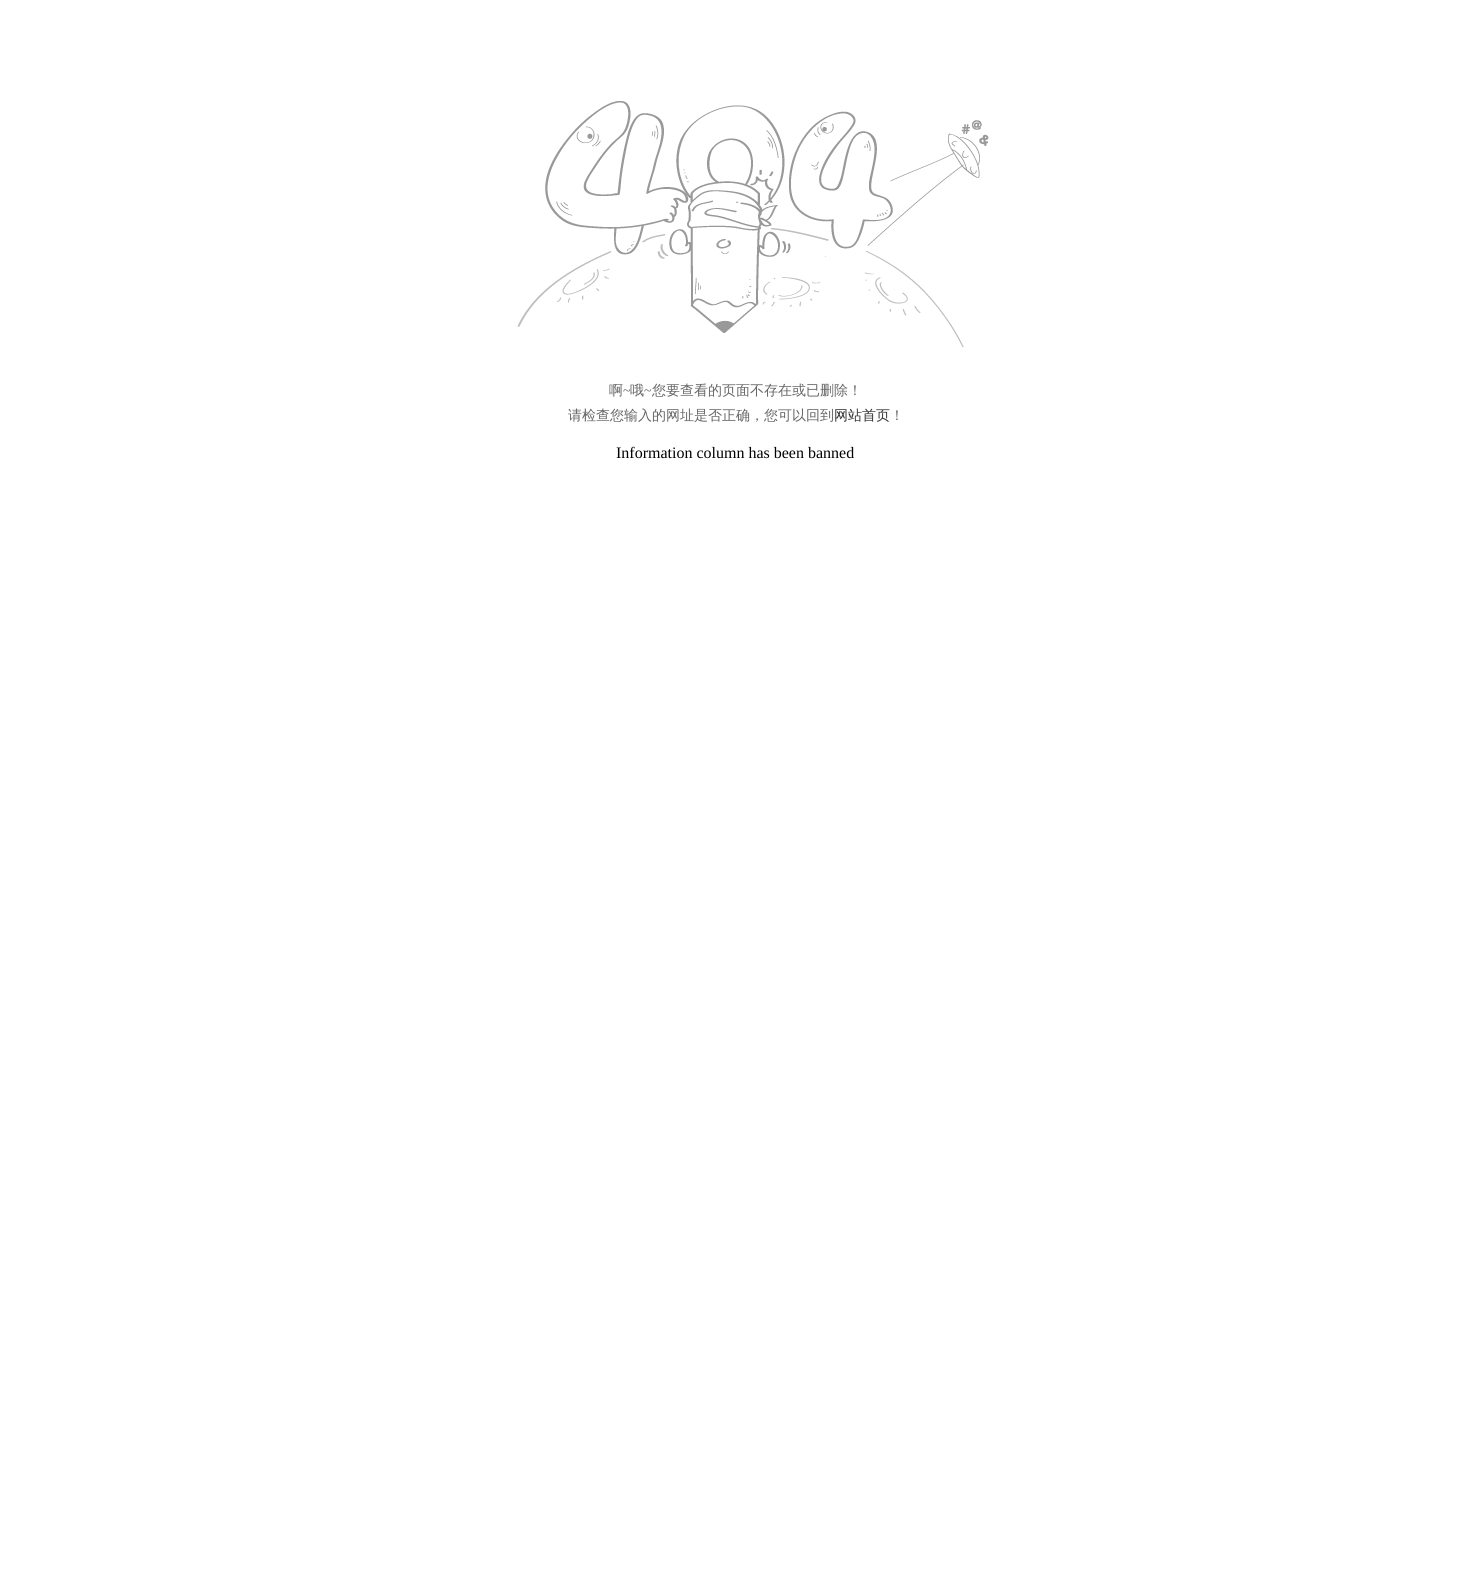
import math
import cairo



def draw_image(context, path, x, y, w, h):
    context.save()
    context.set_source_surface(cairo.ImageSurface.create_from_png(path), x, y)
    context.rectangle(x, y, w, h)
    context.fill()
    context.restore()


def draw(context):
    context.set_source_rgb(1, 1, 1)
    context.paint()
    draw_image(context, "images/1.png", 517, 101, 472, 246)
    context.select_font_face("WenQuanYi Zen Hei Medium")
    context.set_font_size(14)
    context.set_source_rgb(102 / 255, 102 / 255, 102 / 255)
    context.move_to(609, 395)
    context.show_text("啊")
    context.select_font_face("Liberation Serif")
    context.move_to(623, 395)
    context.show_text("~")
    context.select_font_face("WenQuanYi Zen Hei Medium")
    context.move_to(630, 395)
    context.show_text("哦")
    context.select_font_face("Liberation Serif")
    context.move_to(644, 395)
    context.show_text("~")
    context.select_font_face("WenQuanYi Zen Hei Medium")
    context.move_to(652, 395)
    context.show_text("您要查看的页面不存在或已删除！")
    context.move_to(568, 420)
    context.show_text("请检查您输入的网址是否正确，您可以回到")
    context.set_source_rgb(51 / 255, 51 / 255, 51 / 255)
    context.move_to(834, 420)
    context.show_text("网站首页")
    context.set_source_rgb(102 / 255, 102 / 255, 102 / 255)
    context.move_to(890, 420)
    context.show_text("！")
    context.select_font_face("Liberation Serif")
    context.set_font_size(16)
    context.set_source_rgb(0, 0, 0)
    context.move_to(616, 458)
    context.show_text("Information column has been banned")


surface = cairo.ImageSurface(cairo.Format.RGB24, 1471, 1586)
context = cairo.Context(surface)
options = cairo.FontOptions()
options.set_hint_metrics(cairo.HintMetrics.OFF)
options.set_hint_style(cairo.HintStyle.NONE)
context.set_font_options(options)
context.set_miter_limit(4)
draw(context)
surface.write_to_png("out.png")
